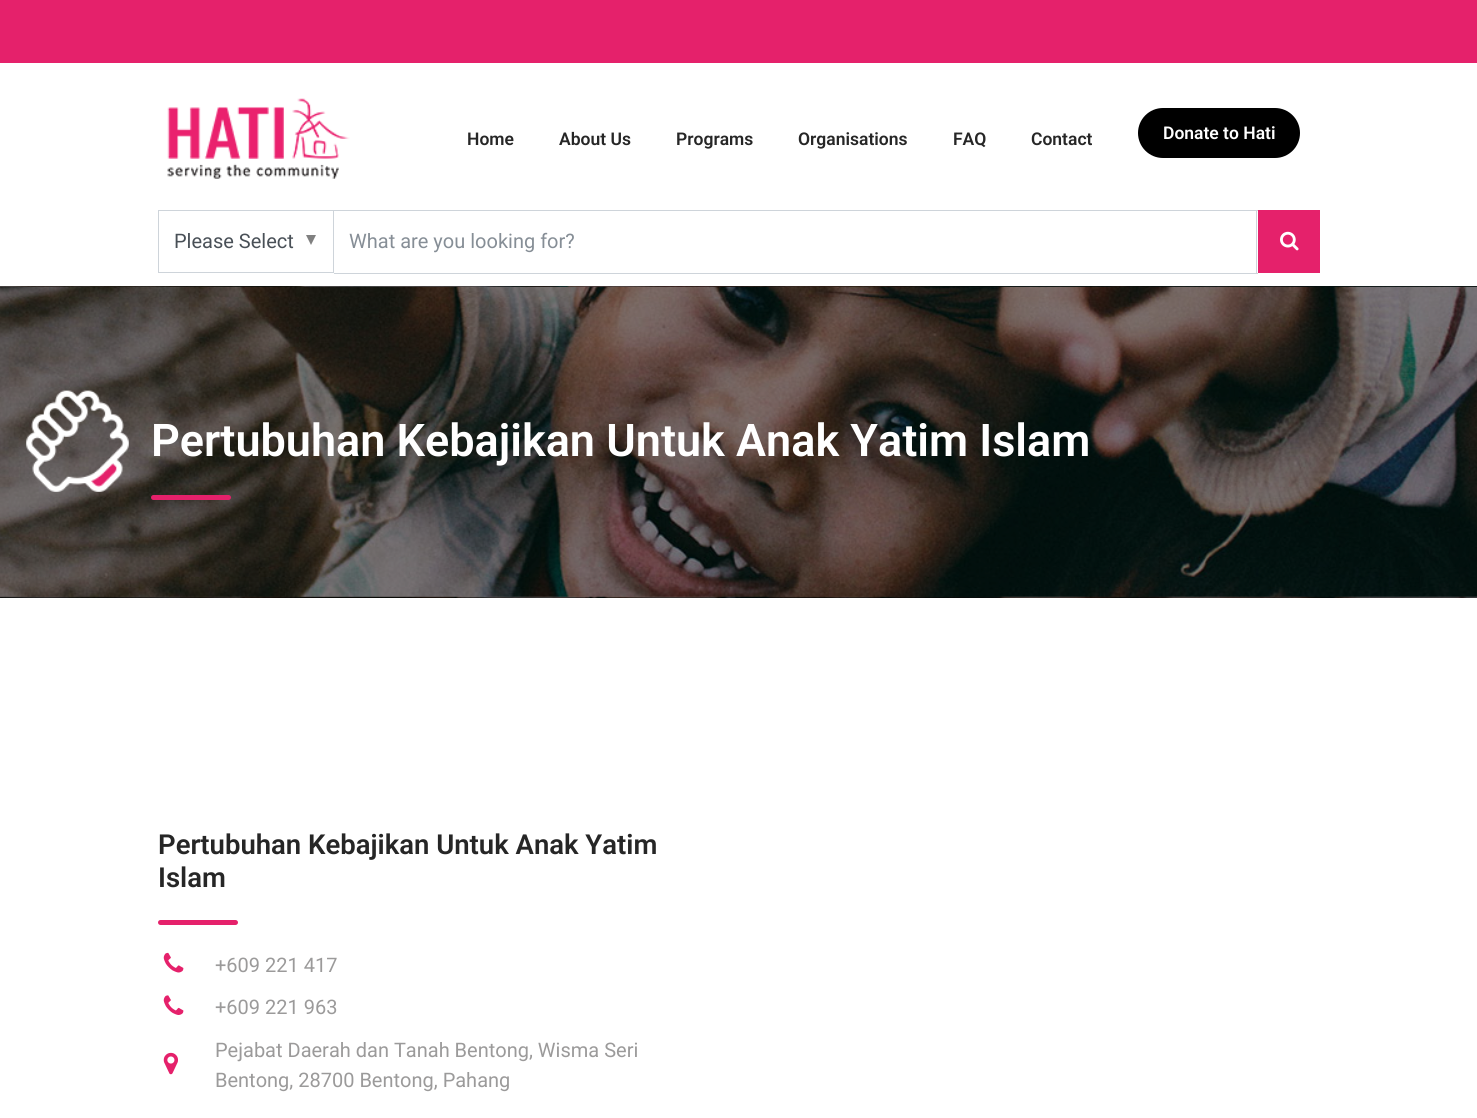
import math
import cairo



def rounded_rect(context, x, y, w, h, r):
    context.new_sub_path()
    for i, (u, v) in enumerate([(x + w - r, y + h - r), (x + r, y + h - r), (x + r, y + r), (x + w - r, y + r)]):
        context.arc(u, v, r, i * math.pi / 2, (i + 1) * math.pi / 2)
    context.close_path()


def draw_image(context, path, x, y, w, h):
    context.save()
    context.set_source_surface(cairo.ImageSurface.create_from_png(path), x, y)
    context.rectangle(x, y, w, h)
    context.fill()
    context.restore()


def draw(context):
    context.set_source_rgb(1, 1, 1)
    context.paint()
    context.set_source_rgb(229 / 255, 33 / 255, 107 / 255)
    context.rectangle(0, 0, 1477, 63)
    context.fill()
    draw_image(context, "images/1.png", 167, 98, 183, 81)
    context.set_source_rgb(0, 0, 0)
    rounded_rect(context, 1138, 108, 162, 50, 25)
    context.fill()
    context.rectangle(158.5, 210.5, 175, 62)
    context.set_source_rgb(206 / 255, 212 / 255, 218 / 255)
    context.set_line_width(1)
    context.stroke()
    context.set_source_rgb(128 / 255, 128 / 255, 128 / 255)
    context.new_path()
    context.move_to(306, 235)
    context.line_to(316, 235)
    context.line_to(311, 245)
    context.close_path()
    context.fill()
    context.set_source_rgb(206 / 255, 212 / 255, 218 / 255)
    context.rectangle(334, 210, 924, 1)
    context.fill()
    context.rectangle(1256, 210, 1, 64)
    context.fill()
    context.rectangle(334, 273, 924, 1)
    context.fill()
    context.set_source_rgb(229 / 255, 33 / 255, 107 / 255)
    context.rectangle(1258, 210, 62, 63)
    context.fill()
    draw_image(context, "images/2.png", 1280, 231, 19, 20)
    context.set_source_rgb(0, 0, 0)
    context.rectangle(0, 286, 1477, 312)
    context.fill()
    draw_image(context, "images/3.png", 0, 286, 1477, 312)
    draw_image(context, "images/4.png", 26, 390, 103, 102)
    context.set_source_rgb(229 / 255, 33 / 255, 107 / 255)
    rounded_rect(context, 151, 495, 80, 5, 2.5)
    context.fill()
    rounded_rect(context, 158, 920, 80, 5, 2.5)
    context.fill()
    draw_image(context, "images/5.png", 163, 952, 21, 21)
    draw_image(context, "images/6.png", 163, 995, 21, 20)
    draw_image(context, "images/7.png", 163, 1052, 15, 23)
    context.select_font_face("Roboto SemiBold")
    context.set_font_size(17.5)
    context.set_source_rgb(38 / 255, 38 / 255, 38 / 255)
    context.move_to(467, 145)
    context.show_text("Home")
    context.move_to(559, 145)
    context.show_text("About Us")
    context.move_to(676, 145)
    context.show_text("Programs")
    context.move_to(798, 145)
    context.show_text("Organisations")
    context.move_to(953, 145)
    context.show_text("FAQ")
    context.move_to(1031, 145)
    context.show_text("Contact")
    context.set_source_rgb(1, 1, 1)
    context.move_to(1163, 139)
    context.show_text("Donate to Hati")
    context.select_font_face("Roboto")
    context.set_font_size(20)
    context.set_source_rgb(73 / 255, 80 / 255, 87 / 255)
    context.move_to(174, 248)
    context.show_text("Please Select")
    context.set_source_rgb(134 / 255, 142 / 255, 150 / 255)
    context.move_to(349, 248)
    context.show_text("What are you looking for?")
    context.select_font_face("Roboto SemiBold")
    context.set_font_size(45)
    context.set_source_rgb(1, 1, 1)
    context.move_to(151, 456)
    context.show_text("Pertubuhan Kebajikan Untuk Anak Yatim Islam")
    context.set_font_size(27.5)
    context.set_source_rgb(38 / 255, 38 / 255, 38 / 255)
    context.move_to(158, 854)
    context.show_text("Pertubuhan Kebajikan Untuk Anak Yatim")
    context.move_to(158, 887)
    context.show_text("Islam")
    context.select_font_face("Roboto")
    context.set_font_size(20)
    context.set_source_rgb(155 / 255, 154 / 255, 154 / 255)
    context.move_to(215, 972)
    context.show_text("+609 221 417")
    context.move_to(215, 1014)
    context.show_text("+609 221 963")
    context.move_to(215, 1057)
    context.show_text("Pejabat Daerah dan Tanah Bentong, Wisma Seri")
    context.move_to(215, 1087)
    context.show_text("Bentong, 28700 Bentong, Pahang")


surface = cairo.ImageSurface(cairo.Format.RGB24, 1477, 1118)
context = cairo.Context(surface)
options = cairo.FontOptions()
options.set_hint_metrics(cairo.HintMetrics.OFF)
options.set_hint_style(cairo.HintStyle.NONE)
context.set_font_options(options)
context.set_miter_limit(4)
draw(context)
surface.write_to_png("out.png")
